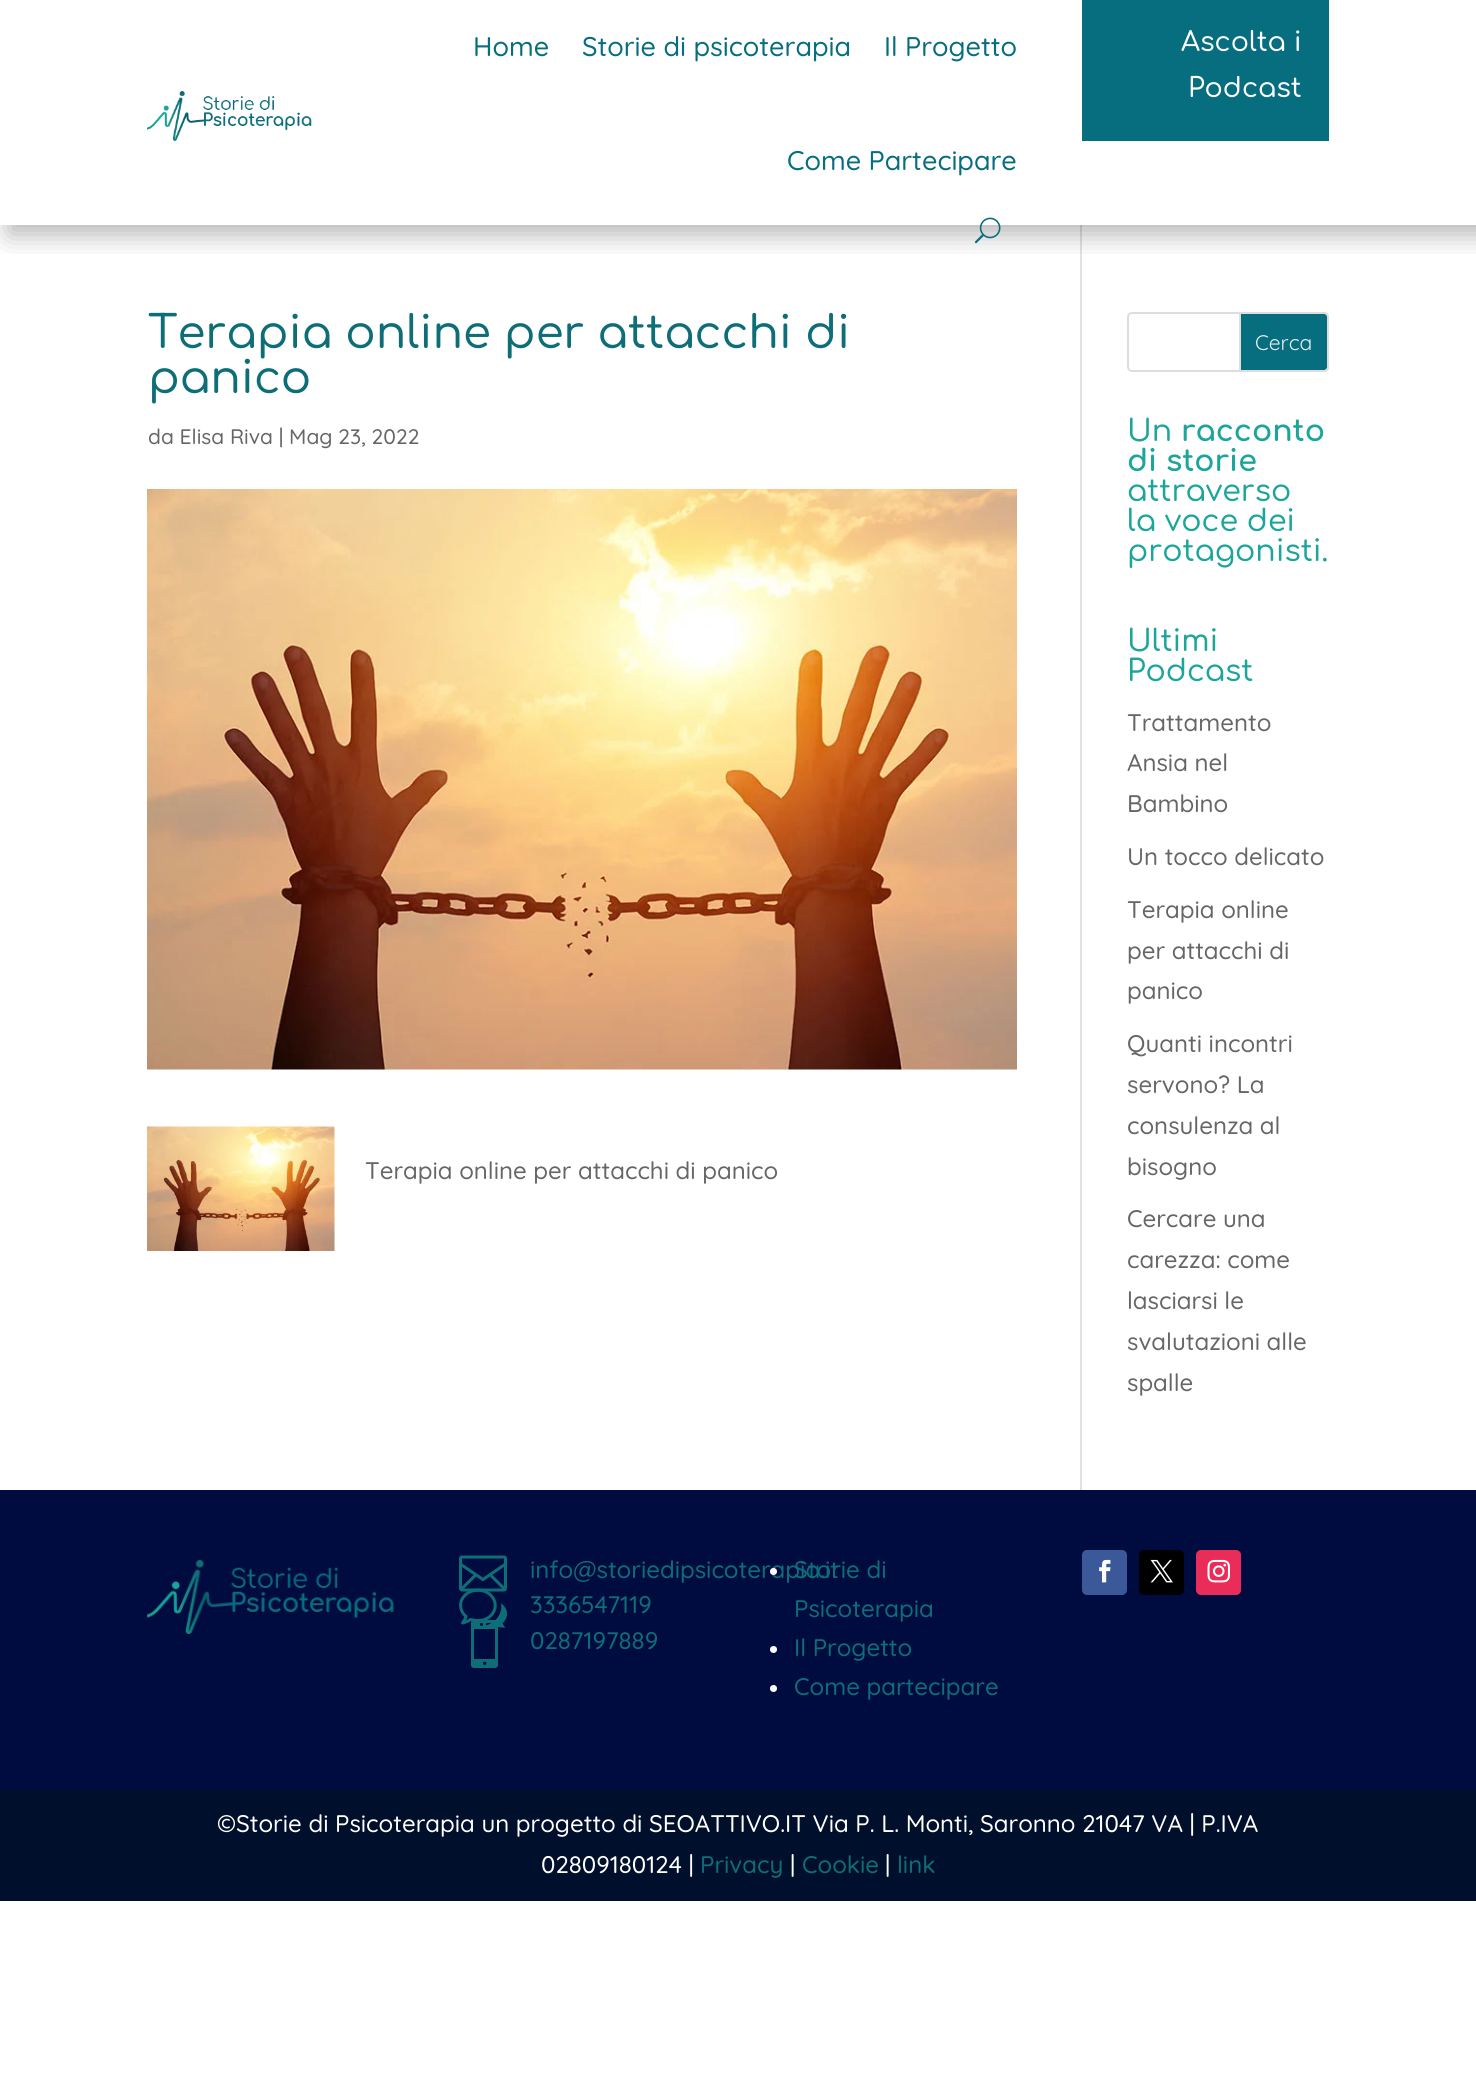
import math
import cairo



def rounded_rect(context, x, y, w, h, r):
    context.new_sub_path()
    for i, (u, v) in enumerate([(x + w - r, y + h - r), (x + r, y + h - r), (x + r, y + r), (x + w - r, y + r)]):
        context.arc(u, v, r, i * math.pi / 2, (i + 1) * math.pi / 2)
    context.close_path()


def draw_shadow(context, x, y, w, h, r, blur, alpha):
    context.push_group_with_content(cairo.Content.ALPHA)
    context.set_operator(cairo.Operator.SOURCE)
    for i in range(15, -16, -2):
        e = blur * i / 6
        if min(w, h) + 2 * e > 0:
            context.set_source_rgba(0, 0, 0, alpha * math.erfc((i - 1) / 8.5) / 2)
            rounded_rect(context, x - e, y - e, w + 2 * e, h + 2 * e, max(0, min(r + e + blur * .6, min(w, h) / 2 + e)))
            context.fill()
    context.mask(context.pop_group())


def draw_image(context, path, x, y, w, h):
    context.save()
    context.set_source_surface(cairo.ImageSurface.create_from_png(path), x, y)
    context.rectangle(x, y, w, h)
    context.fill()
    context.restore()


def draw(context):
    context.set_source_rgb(1, 1, 1)
    context.paint()
    context.set_source_rgb(226 / 255, 226 / 255, 226 / 255)
    context.rectangle(1080, 225, 2, 1265)
    context.fill()
    context.save()
    context.rectangle(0, 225, 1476, 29)
    context.clip()
    context.set_source_rgb(0, 0, 0)
    draw_shadow(context, 9, -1, 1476, 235, 0, 13.5, 0.3)
    context.restore()
    draw_image(context, "images/1.png", 147, 91, 165, 50)
    draw_image(context, "images/2.png", 974, 217, 27, 27)
    context.set_source_rgb(7 / 255, 110 / 255, 128 / 255)
    context.rectangle(1082, 0, 247, 141)
    context.fill()
    draw_image(context, "images/3.png", 147, 489, 870, 581)
    draw_image(context, "images/4.png", 147, 1126, 188, 125)
    rounded_rect(context, 1128, 313, 200, 58, 4)
    context.set_source_rgb(221 / 255, 221 / 255, 221 / 255)
    context.stroke()
    context.set_source_rgb(7 / 255, 110 / 255, 128 / 255)
    context.new_path()
    context.move_to(1240, 313)
    context.line_to(1324, 313)
    context.curve_to(1326, 313, 1328, 315, 1328, 317)
    context.line_to(1328, 367)
    context.curve_to(1328, 369, 1326, 371, 1324, 371)
    context.line_to(1240, 371)
    context.close_path()
    context.fill_preserve()
    context.set_source_rgb(221 / 255, 221 / 255, 221 / 255)
    context.stroke()
    context.set_source_rgb(0, 12 / 255, 63 / 255)
    context.rectangle(0, 1490, 1476, 300)
    context.fill()
    draw_image(context, "images/5.png", 147, 1560, 247, 74)
    draw_image(context, "images/6.png", 459, 1555, 48, 37)
    draw_image(context, "images/7.png", 459, 1588, 48, 40)
    draw_image(context, "images/8.png", 471, 1620, 27, 48)
    context.set_source_rgb(1, 1, 1)
    context.arc(773.5, 1649.5, 3.5, 0, 2 * math.pi)
    context.fill()
    context.arc(773.5, 1688.5, 3.5, 0, 2 * math.pi)
    context.fill()
    context.set_source_rgb(59 / 255, 89 / 255, 152 / 255)
    rounded_rect(context, 1082, 1550, 45, 45, 5)
    context.fill()
    draw_image(context, "images/9.png", 1099, 1559, 12, 24)
    context.set_source_rgb(0, 0, 0)
    rounded_rect(context, 1139, 1550, 45, 45, 5)
    context.fill()
    draw_image(context, "images/10.png", 1150, 1559, 23, 24)
    context.set_source_rgb(234 / 255, 44 / 255, 89 / 255)
    rounded_rect(context, 1196, 1550, 45, 45, 5)
    context.fill()
    draw_image(context, "images/11.png", 1207, 1559, 23, 24)
    context.set_source_rgb(0, 15 / 255, 43 / 255)
    context.rectangle(0, 1790, 1476, 111)
    context.fill()
    context.select_font_face("Quicksand Medium")
    context.set_font_size(27)
    context.set_source_rgb(7 / 255, 110 / 255, 128 / 255)
    context.move_to(473, 56)
    context.show_text("Home")
    context.move_to(582, 56)
    context.show_text("Storie di psicoterapia")
    context.move_to(884, 56)
    context.show_text("Il Progetto")
    context.move_to(787, 170)
    context.show_text("Come Partecipare")
    context.select_font_face("Comfortaa Medium")
    context.set_source_rgb(1, 1, 1)
    context.move_to(1181, 51)
    context.show_text("Ascolta i")
    context.move_to(1188, 97)
    context.show_text("Podcast")
    context.set_font_size(45)
    context.set_source_rgb(13 / 255, 110 / 255, 119 / 255)
    context.move_to(148, 348)
    context.show_text("Terapia online per attacchi di")
    context.move_to(148, 393)
    context.show_text("panico")
    context.select_font_face("Quicksand Medium")
    context.set_font_size(21)
    context.set_source_rgb(102 / 255, 102 / 255, 102 / 255)
    context.move_to(148, 444)
    context.show_text("da Elisa Riva | Mag 23, 2022")
    context.set_font_size(24)
    context.move_to(365, 1179)
    context.show_text("Terapia online per attacchi di panico")
    context.select_font_face("Quicksand")
    context.set_font_size(21)
    context.set_source_rgb(230 / 255, 241 / 255, 242 / 255)
    context.move_to(1255, 350)
    context.show_text("Cerca")
    context.select_font_face("Comfortaa Medium")
    context.set_font_size(30)
    context.set_source_rgb(27 / 255, 165 / 255, 155 / 255)
    context.move_to(1127, 441)
    context.show_text("Un")
    context.select_font_face("Comfortaa", cairo.FontSlant.NORMAL, cairo.FontWeight.BOLD)
    context.move_to(1181, 441)
    context.show_text("racconto")
    context.move_to(1127, 471)
    context.show_text("di storie")
    context.select_font_face("Comfortaa Medium")
    context.move_to(1127, 501)
    context.show_text("attraverso")
    context.move_to(1127, 531)
    context.show_text("la voce dei")
    context.move_to(1127, 561)
    context.show_text("protagonisti.")
    context.move_to(1127, 651)
    context.show_text("Ultimi")
    context.move_to(1127, 681)
    context.show_text("Podcast")
    context.select_font_face("Quicksand Medium")
    context.set_font_size(24)
    context.set_source_rgb(102 / 255, 102 / 255, 102 / 255)
    context.move_to(1127, 731)
    context.show_text("Trattamento")
    context.move_to(1127, 771)
    context.show_text("Ansia nel")
    context.move_to(1127, 812)
    context.show_text("Bambino")
    context.move_to(1127, 865)
    context.show_text("Un tocco delicato")
    context.move_to(1127, 918)
    context.show_text("Terapia online")
    context.move_to(1127, 959)
    context.show_text("per attacchi di")
    context.move_to(1127, 999)
    context.show_text("panico")
    context.move_to(1127, 1052)
    context.show_text("Quanti incontri")
    context.move_to(1127, 1093)
    context.show_text("servono? La")
    context.move_to(1127, 1134)
    context.show_text("consulenza al")
    context.move_to(1127, 1175)
    context.show_text("bisogno")
    context.move_to(1127, 1227)
    context.show_text("Cercare una")
    context.move_to(1127, 1268)
    context.show_text("carezza: come")
    context.move_to(1127, 1309)
    context.show_text("lasciarsi le")
    context.move_to(1127, 1350)
    context.show_text("svalutazioni alle")
    context.move_to(1127, 1391)
    context.show_text("spalle")
    context.set_source_rgb(13 / 255, 110 / 255, 119 / 255)
    context.move_to(530, 1578)
    context.show_text("info@storiedipsicoterapia.it")
    context.move_to(530, 1613)
    context.show_text("3336547119")
    context.move_to(530, 1649)
    context.show_text("0287197889")
    context.set_source_rgb(1, 1, 1)
    context.new_path()
    context.arc(773.5, 1571.5, 3.5, 0, 2 * math.pi)
    context.fill()
    context.set_source_rgb(13 / 255, 110 / 255, 119 / 255)
    context.move_to(794, 1578)
    context.show_text("Storie di")
    context.move_to(794, 1617)
    context.show_text("Psicoterapia")
    context.move_to(794, 1656)
    context.show_text("Il Progetto")
    context.move_to(794, 1695)
    context.show_text("Come partecipare")
    context.set_source_rgb(1, 1, 1)
    context.move_to(217, 1832)
    context.show_text("©Storie di Psicoterapia un progetto di SEOATTIVO.IT Via P. L. Monti, Saronno 21047 VA | P.IVA")
    context.move_to(541, 1873)
    context.show_text("02809180124 |")
    context.set_source_rgb(13 / 255, 110 / 255, 119 / 255)
    context.move_to(700, 1873)
    context.show_text("Privacy")
    context.set_source_rgb(1, 1, 1)
    context.move_to(790, 1873)
    context.show_text("|")
    context.set_source_rgb(13 / 255, 110 / 255, 119 / 255)
    context.move_to(802, 1873)
    context.show_text("Cookie")
    context.set_source_rgb(1, 1, 1)
    context.move_to(885, 1873)
    context.show_text("|")
    context.set_source_rgb(13 / 255, 110 / 255, 119 / 255)
    context.move_to(897, 1873)
    context.show_text("link")


surface = cairo.ImageSurface(cairo.Format.RGB24, 1476, 2076)
context = cairo.Context(surface)
options = cairo.FontOptions()
options.set_hint_metrics(cairo.HintMetrics.OFF)
options.set_hint_style(cairo.HintStyle.NONE)
context.set_font_options(options)
context.set_miter_limit(4)
draw(context)
surface.write_to_png("out.png")
